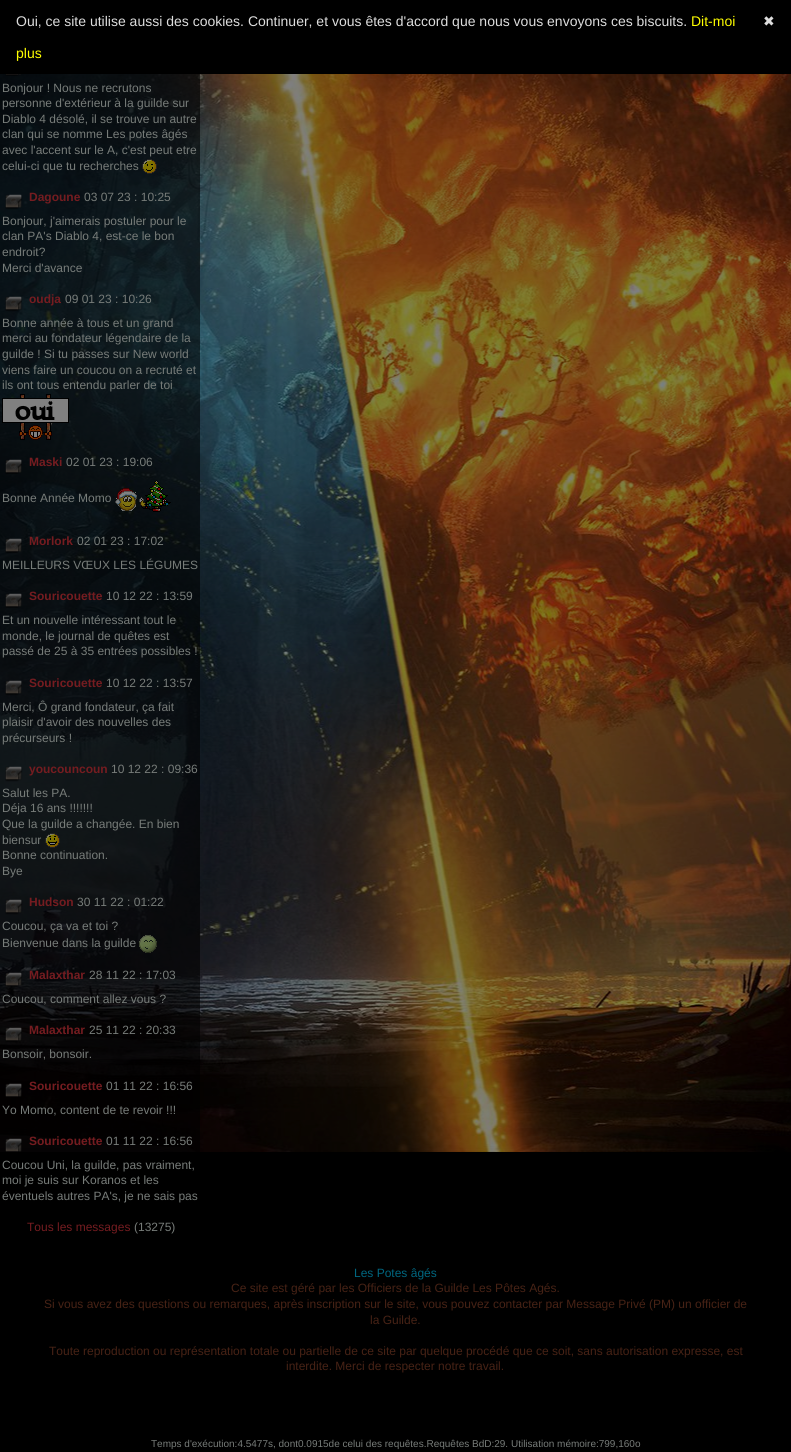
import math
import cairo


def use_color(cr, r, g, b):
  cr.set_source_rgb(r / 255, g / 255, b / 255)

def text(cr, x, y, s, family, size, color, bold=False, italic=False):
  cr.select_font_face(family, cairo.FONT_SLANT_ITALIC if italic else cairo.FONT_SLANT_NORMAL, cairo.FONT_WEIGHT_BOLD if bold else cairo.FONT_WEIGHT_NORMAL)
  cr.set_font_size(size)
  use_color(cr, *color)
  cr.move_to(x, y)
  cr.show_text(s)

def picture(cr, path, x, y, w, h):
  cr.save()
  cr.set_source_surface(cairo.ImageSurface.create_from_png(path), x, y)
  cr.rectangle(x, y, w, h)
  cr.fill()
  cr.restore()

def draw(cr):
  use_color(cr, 0, 0, 0)
  cr.paint()
  picture(cr, "img_01.png", 0, 74, 791, 1078)
  cr.set_source_rgba(0, 0, 0, 0.6)
  cr.rectangle(0, 74, 200, 1078)
  cr.fill()
  picture(cr, "img_02.png", 5, 74, 17, 2)
  picture(cr, "img_03.png", 142, 159, 15, 15)
  picture(cr, "img_04.png", 5, 194, 18, 16)
  picture(cr, "img_05.png", 5, 296, 18, 16)
  picture(cr, "img_06.png", 2, 394, 67, 46)
  picture(cr, "img_07.png", 5, 459, 17, 15)
  picture(cr, "img_08.png", 115, 480, 56, 32)
  picture(cr, "img_09.png", 5, 538, 17, 16)
  picture(cr, "img_10.png", 5, 593, 17, 15)
  picture(cr, "img_11.png", 5, 680, 17, 16)
  picture(cr, "img_12.png", 5, 766, 18, 16)
  picture(cr, "img_13.png", 45, 833, 15, 15)
  picture(cr, "img_14.png", 5, 899, 18, 16)
  picture(cr, "img_15.png", 139, 935, 18, 18)
  picture(cr, "img_16.png", 5, 972, 18, 15)
  picture(cr, "img_17.png", 5, 1027, 17, 15)
  picture(cr, "img_18.png", 5, 1083, 17, 14)
  picture(cr, "img_19.png", 5, 1138, 17, 14)
  text(cr, 16, 26, "Oui, ce site utilise aussi des cookies. Continuer, et vous êtes d'accord que nous vous envoyons ces biscuits.", "Liberation Sans", 14, (221, 221, 221))
  text(cr, 691, 26, "Dit-moi", "Liberation Sans", 14, (255, 255, 0))
  text(cr, 763, 26, "✖", "DejaVu Sans", 14, (221, 221, 221))
  text(cr, 16, 58, "plus", "Liberation Sans", 14, (255, 255, 0))
  text(cr, 2, 92, "Bonjour ! Nous ne recrutons", "Liberation Sans", 12, (119, 124, 121))
  text(cr, 2, 107, "personne d'extérieur à la guilde sur", "Liberation Sans", 12, (119, 124, 121))
  text(cr, 2, 123, "Diablo 4 désolé, il se trouve un autre", "Liberation Sans", 12, (119, 124, 121))
  text(cr, 2, 138, "clan qui se nomme Les potes âgés", "Liberation Sans", 12, (119, 124, 121))
  text(cr, 2, 154, "avec l'accent sur le A, c'est peut etre", "Liberation Sans", 12, (119, 124, 121))
  text(cr, 2, 170, "celui-ci que tu recherches", "Liberation Sans", 12, (119, 124, 121))
  text(cr, 29, 201, "Dagoune", "Liberation Sans", 12, (117, 28, 32), bold=True)
  text(cr, 84, 201, "03 07 23 : 10:25", "Liberation Sans", 12, (119, 124, 121))
  text(cr, 2, 225, "Bonjour, j'aimerais postuler pour le", "Liberation Sans", 12, (119, 124, 121))
  text(cr, 2, 240, "clan PA's Diablo 4, est-ce le bon", "Liberation Sans", 12, (119, 124, 121))
  text(cr, 2, 256, "endroit?", "Liberation Sans", 12, (119, 124, 121))
  text(cr, 2, 272, "Merci d'avance", "Liberation Sans", 12, (119, 124, 121))
  text(cr, 29, 303, "oudja", "Liberation Sans", 12, (117, 28, 32), bold=True)
  text(cr, 65, 303, "09 01 23 : 10:26", "Liberation Sans", 12, (119, 124, 121))
  text(cr, 2, 327, "Bonne année à tous et un grand", "Liberation Sans", 12, (119, 124, 121))
  text(cr, 2, 342, "merci au fondateur légendaire de la", "Liberation Sans", 12, (119, 124, 121))
  text(cr, 2, 358, "guilde ! Si tu passes sur New world", "Liberation Sans", 12, (119, 124, 121))
  text(cr, 2, 374, "viens faire un coucou on a recruté et", "Liberation Sans", 12, (119, 124, 121))
  text(cr, 2, 389, "ils ont tous entendu parler de toi", "Liberation Sans", 12, (119, 124, 121))
  text(cr, 29, 466, "Maski", "Liberation Sans", 12, (117, 28, 32), bold=True)
  text(cr, 66, 466, "02 01 23 : 19:06", "Liberation Sans", 12, (119, 124, 121))
  text(cr, 2, 502, "Bonne Année Momo", "Liberation Sans", 12, (119, 124, 121))
  text(cr, 29, 545, "Morlork", "Liberation Sans", 12, (117, 28, 32), bold=True)
  text(cr, 77, 545, "02 01 23 : 17:02", "Liberation Sans", 12, (119, 124, 121))
  text(cr, 2, 569, "MEILLEURS VŒUX LES LÉGUMES", "Liberation Sans", 12, (119, 124, 121))
  text(cr, 29, 600, "Souricouette", "Liberation Sans", 12, (117, 28, 32), bold=True)
  text(cr, 106, 600, "10 12 22 : 13:59", "Liberation Sans", 12, (119, 124, 121))
  text(cr, 2, 624, "Et un nouvelle intéressant tout le", "Liberation Sans", 12, (119, 124, 121))
  text(cr, 2, 640, "monde, le journal de quêtes est", "Liberation Sans", 12, (119, 124, 121))
  text(cr, 2, 655, "passé de 25 à 35 entrées possibles !", "Liberation Sans", 12, (119, 124, 121))
  text(cr, 29, 687, "Souricouette", "Liberation Sans", 12, (117, 28, 32), bold=True)
  text(cr, 106, 687, "10 12 22 : 13:57", "Liberation Sans", 12, (119, 124, 121))
  text(cr, 2, 711, "Merci, Ô grand fondateur, ça fait", "Liberation Sans", 12, (119, 124, 121))
  text(cr, 2, 726, "plaisir d'avoir des nouvelles des", "Liberation Sans", 12, (119, 124, 121))
  text(cr, 2, 742, "précurseurs !", "Liberation Sans", 12, (119, 124, 121))
  text(cr, 29, 773, "youcouncoun", "Liberation Sans", 12, (117, 28, 32), bold=True)
  text(cr, 111, 773, "10 12 22 : 09:36", "Liberation Sans", 12, (119, 124, 121))
  text(cr, 2, 797, "Salut les PA.", "Liberation Sans", 12, (119, 124, 121))
  text(cr, 2, 812, "Déja 16 ans !!!!!!!", "Liberation Sans", 12, (119, 124, 121))
  text(cr, 2, 828, "Que la guilde a changée. En bien", "Liberation Sans", 12, (119, 124, 121))
  text(cr, 2, 844, "biensur", "Liberation Sans", 12, (119, 124, 121))
  text(cr, 2, 859, "Bonne continuation.", "Liberation Sans", 12, (119, 124, 121))
  text(cr, 2, 875, "Bye", "Liberation Sans", 12, (119, 124, 121))
  text(cr, 29, 906, "Hudson", "Liberation Sans", 12, (117, 28, 32), bold=True)
  text(cr, 77, 906, "30 11 22 : 01:22", "Liberation Sans", 12, (119, 124, 121))
  text(cr, 2, 930, "Coucou, ça va et toi ?", "Liberation Sans", 12, (119, 124, 121))
  text(cr, 2, 947, "Bienvenue dans la guilde", "Liberation Sans", 12, (119, 124, 121))
  text(cr, 29, 979, "Malaxthar", "Liberation Sans", 12, (117, 28, 32), bold=True)
  text(cr, 89, 979, "28 11 22 : 17:03", "Liberation Sans", 12, (119, 124, 121))
  text(cr, 2, 1003, "Coucou, comment allez vous ?", "Liberation Sans", 12, (119, 124, 121))
  text(cr, 29, 1034, "Malaxthar", "Liberation Sans", 12, (117, 28, 32), bold=True)
  text(cr, 89, 1034, "25 11 22 : 20:33", "Liberation Sans", 12, (119, 124, 121))
  text(cr, 2, 1058, "Bonsoir, bonsoir.", "Liberation Sans", 12, (119, 124, 121))
  text(cr, 29, 1090, "Souricouette", "Liberation Sans", 12, (117, 28, 32), bold=True)
  text(cr, 106, 1090, "01 11 22 : 16:56", "Liberation Sans", 12, (119, 124, 121))
  text(cr, 2, 1114, "Yo Momo, content de te revoir !!!", "Liberation Sans", 12, (119, 124, 121))
  text(cr, 29, 1145, "Souricouette", "Liberation Sans", 12, (117, 28, 32), bold=True)
  text(cr, 106, 1145, "01 11 22 : 16:56", "Liberation Sans", 12, (119, 124, 121))
  text(cr, 2, 1169, "Coucou Uni, la guilde, pas vraiment,", "Liberation Sans", 12, (119, 124, 121))
  text(cr, 2, 1184, "moi je suis sur Koranos et les", "Liberation Sans", 12, (119, 124, 121))
  text(cr, 2, 1200, "éventuels autres PA's, je ne sais pas", "Liberation Sans", 12, (119, 124, 121))
  text(cr, 27, 1231, "Tous les messages", "Liberation Sans", 12, (117, 28, 32))
  text(cr, 134, 1231, "(13275)", "Liberation Sans", 12, (119, 124, 121))
  text(cr, 354, 1277, "Les Potes âgés", "Liberation Sans", 12, (0, 102, 128))
  text(cr, 231, 1292, "Ce site est géré par les Officiers de la Guilde Les Pôtes Agés.", "Liberation Sans", 12, (71, 34, 21))
  text(cr, 44, 1308, "Si vous avez des questions ou remarques, après inscription sur le site, vous pouvez contacter par Message Privé (PM) un officier de", "Liberation Sans", 12, (71, 34, 21))
  text(cr, 370, 1324, "la Guilde.", "Liberation Sans", 12, (71, 34, 21))
  text(cr, 49, 1355, "Toute reproduction ou représentation totale ou partielle de ce site par quelque procédé que ce soit, sans autorisation expresse, est", "Liberation Sans", 12, (71, 34, 21))
  text(cr, 286, 1370, "interdite. Merci de respecter notre travail.", "Liberation Sans", 12, (71, 34, 21))
  text(cr, 151, 1447, "Temps d'exécution:4.5477s, dont0.0915de celui des requêtes.Requêtes BdD:29. Utilisation mémoire:799,160o", "Liberation Sans", 10, (119, 124, 121))


surface = cairo.ImageSurface(cairo.FORMAT_RGB24, 791, 1452)
cr = cairo.Context(surface)
options = cairo.FontOptions()
options.set_hint_metrics(cairo.HINT_METRICS_OFF)
options.set_hint_style(cairo.HINT_STYLE_NONE)
cr.set_font_options(options)
cr.set_miter_limit(4)
draw(cr)
surface.write_to_png("out.png")
